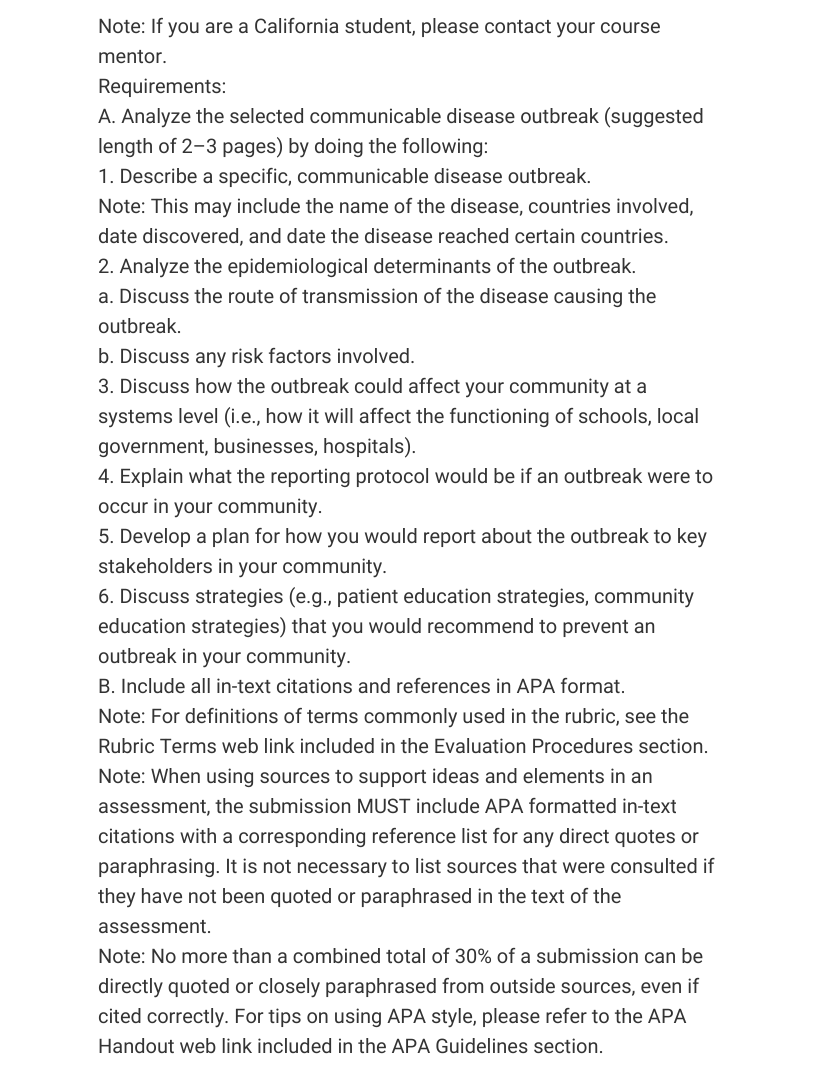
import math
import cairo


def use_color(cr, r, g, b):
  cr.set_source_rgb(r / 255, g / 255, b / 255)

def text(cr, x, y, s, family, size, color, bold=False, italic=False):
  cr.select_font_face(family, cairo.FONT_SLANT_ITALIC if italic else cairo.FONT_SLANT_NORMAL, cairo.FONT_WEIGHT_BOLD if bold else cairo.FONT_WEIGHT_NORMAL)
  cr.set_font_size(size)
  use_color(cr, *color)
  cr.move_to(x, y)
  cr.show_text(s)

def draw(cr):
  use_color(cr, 255, 255, 255)
  cr.paint()
  text(cr, 98, 33, "Note: If you are a California student, please contact your course", "Roboto", 20, (51, 51, 51))
  text(cr, 98, 63, "mentor.", "Roboto", 20, (51, 51, 51))
  text(cr, 98, 93, "Requirements:", "Roboto", 20, (51, 51, 51))
  text(cr, 98, 123, "A. Analyze the selected communicable disease outbreak (suggested", "Roboto", 20, (51, 51, 51))
  text(cr, 98, 153, "length of 2–3 pages) by doing the following:", "Roboto", 20, (51, 51, 51))
  text(cr, 98, 183, "1. Describe a specific, communicable disease outbreak.", "Roboto", 20, (51, 51, 51))
  text(cr, 98, 213, "Note: This may include the name of the disease, countries involved,", "Roboto", 20, (51, 51, 51))
  text(cr, 98, 243, "date discovered, and date the disease reached certain countries.", "Roboto", 20, (51, 51, 51))
  text(cr, 98, 273, "2. Analyze the epidemiological determinants of the outbreak.", "Roboto", 20, (51, 51, 51))
  text(cr, 98, 303, "a. Discuss the route of transmission of the disease causing the", "Roboto", 20, (51, 51, 51))
  text(cr, 98, 333, "outbreak.", "Roboto", 20, (51, 51, 51))
  text(cr, 98, 363, "b. Discuss any risk factors involved.", "Roboto", 20, (51, 51, 51))
  text(cr, 98, 393, "3. Discuss how the outbreak could affect your community at a", "Roboto", 20, (51, 51, 51))
  text(cr, 98, 423, "systems level (i.e., how it will affect the functioning of schools, local", "Roboto", 20, (51, 51, 51))
  text(cr, 98, 453, "government, businesses, hospitals).", "Roboto", 20, (51, 51, 51))
  text(cr, 98, 483, "4. Explain what the reporting protocol would be if an outbreak were to", "Roboto", 20, (51, 51, 51))
  text(cr, 98, 513, "occur in your community.", "Roboto", 20, (51, 51, 51))
  text(cr, 98, 543, "5. Develop a plan for how you would report about the outbreak to key", "Roboto", 20, (51, 51, 51))
  text(cr, 98, 573, "stakeholders in your community.", "Roboto", 20, (51, 51, 51))
  text(cr, 98, 603, "6. Discuss strategies (e.g., patient education strategies, community", "Roboto", 20, (51, 51, 51))
  text(cr, 98, 633, "education strategies) that you would recommend to prevent an", "Roboto", 20, (51, 51, 51))
  text(cr, 98, 663, "outbreak in your community.", "Roboto", 20, (51, 51, 51))
  text(cr, 98, 693, "B. Include all in-text citations and references in APA format.", "Roboto", 20, (51, 51, 51))
  text(cr, 98, 723, "Note: For definitions of terms commonly used in the rubric, see the", "Roboto", 20, (51, 51, 51))
  text(cr, 98, 753, "Rubric Terms web link included in the Evaluation Procedures section.", "Roboto", 20, (51, 51, 51))
  text(cr, 98, 783, "Note: When using sources to support ideas and elements in an", "Roboto", 20, (51, 51, 51))
  text(cr, 98, 813, "assessment, the submission MUST include APA formatted in-text", "Roboto", 20, (51, 51, 51))
  text(cr, 98, 843, "citations with a corresponding reference list for any direct quotes or", "Roboto", 20, (51, 51, 51))
  text(cr, 98, 873, "paraphrasing. It is not necessary to list sources that were consulted if", "Roboto", 20, (51, 51, 51))
  text(cr, 98, 903, "they have not been quoted or paraphrased in the text of the", "Roboto", 20, (51, 51, 51))
  text(cr, 98, 933, "assessment.", "Roboto", 20, (51, 51, 51))
  text(cr, 98, 963, "Note: No more than a combined total of 30% of a submission can be", "Roboto", 20, (51, 51, 51))
  text(cr, 98, 993, "directly quoted or closely paraphrased from outside sources, even if", "Roboto", 20, (51, 51, 51))
  text(cr, 98, 1023, "cited correctly. For tips on using APA style, please refer to the APA", "Roboto", 20, (51, 51, 51))
  text(cr, 98, 1053, "Handout web link included in the APA Guidelines section.", "Roboto", 20, (51, 51, 51))


surface = cairo.ImageSurface(cairo.FORMAT_RGB24, 821, 1078)
cr = cairo.Context(surface)
options = cairo.FontOptions()
options.set_hint_metrics(cairo.HINT_METRICS_OFF)
options.set_hint_style(cairo.HINT_STYLE_NONE)
cr.set_font_options(options)
cr.set_miter_limit(4)
draw(cr)
surface.write_to_png("out.png")
